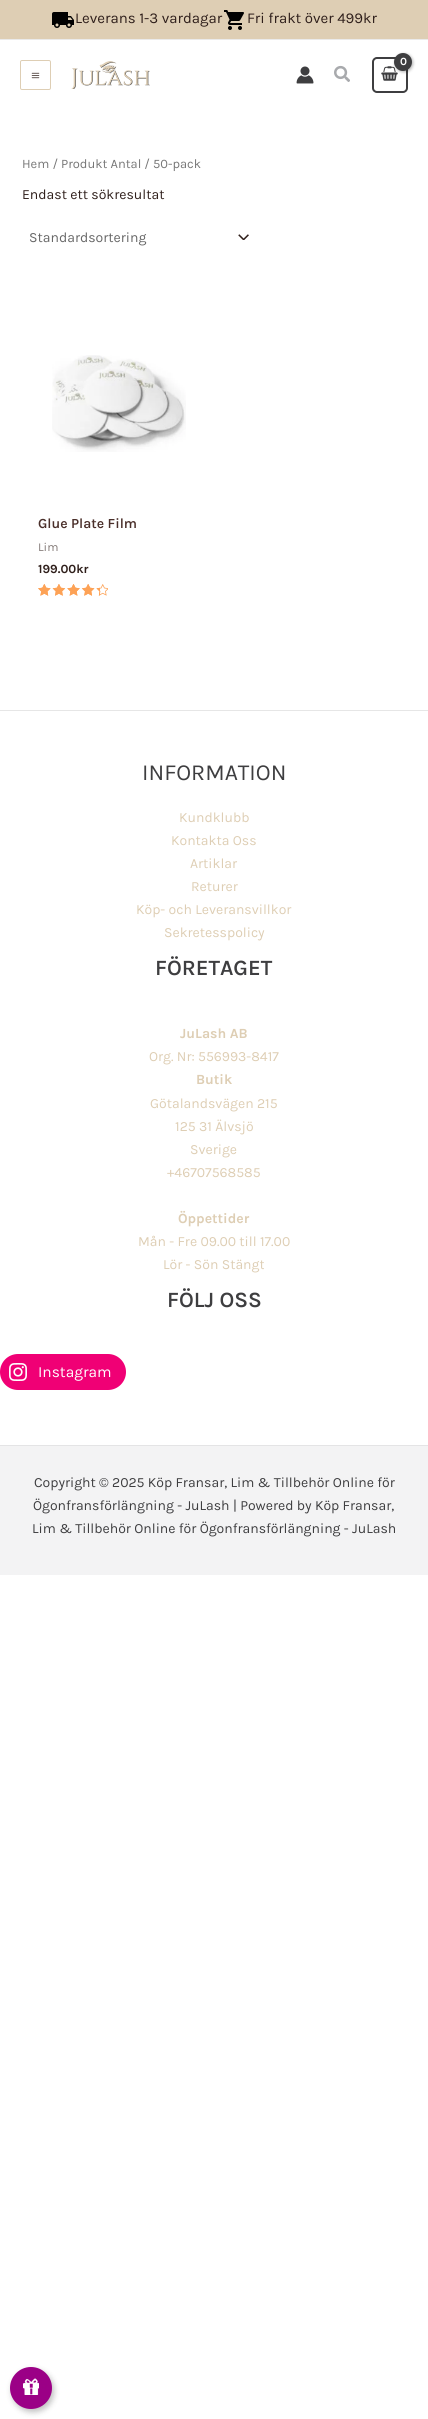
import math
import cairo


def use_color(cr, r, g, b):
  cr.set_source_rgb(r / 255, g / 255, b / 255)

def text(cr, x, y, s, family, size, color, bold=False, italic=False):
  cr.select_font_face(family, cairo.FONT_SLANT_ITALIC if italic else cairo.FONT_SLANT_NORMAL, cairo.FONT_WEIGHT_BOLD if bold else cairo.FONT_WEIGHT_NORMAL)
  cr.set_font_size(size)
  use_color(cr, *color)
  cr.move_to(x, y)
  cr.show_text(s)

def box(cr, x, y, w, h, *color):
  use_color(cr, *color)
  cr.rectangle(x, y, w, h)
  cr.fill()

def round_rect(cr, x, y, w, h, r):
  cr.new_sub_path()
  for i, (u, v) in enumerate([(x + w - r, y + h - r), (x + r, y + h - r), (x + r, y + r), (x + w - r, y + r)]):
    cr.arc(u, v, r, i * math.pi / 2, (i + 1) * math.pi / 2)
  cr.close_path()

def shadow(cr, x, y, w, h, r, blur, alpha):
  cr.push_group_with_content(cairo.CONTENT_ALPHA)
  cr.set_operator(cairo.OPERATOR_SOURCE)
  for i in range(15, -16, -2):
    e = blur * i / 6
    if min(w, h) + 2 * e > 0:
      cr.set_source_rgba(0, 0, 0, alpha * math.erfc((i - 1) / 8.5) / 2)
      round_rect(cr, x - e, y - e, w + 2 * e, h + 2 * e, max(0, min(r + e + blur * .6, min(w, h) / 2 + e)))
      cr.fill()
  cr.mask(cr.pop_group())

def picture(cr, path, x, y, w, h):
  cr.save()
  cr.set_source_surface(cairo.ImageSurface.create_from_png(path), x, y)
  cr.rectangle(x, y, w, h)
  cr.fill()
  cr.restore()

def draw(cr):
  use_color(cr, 255, 255, 255)
  cr.paint()
  box(cr, 0, 0, 428, 39, 222, 206, 180)
  box(cr, 0, 39, 428, 1, 234, 234, 234)
  picture(cr, "img_01.png", 52, 12, 22, 16)
  picture(cr, "img_02.png", 224, 10, 20, 20)
  round_rect(cr, 20.5, 60.5, 30, 29, 1.5)
  use_color(cr, 222, 206, 180)
  cr.set_line_width(1)
  cr.stroke()
  picture(cr, "img_03.png", 31, 72, 9, 7)
  picture(cr, "img_04.png", 71, 61, 79, 28)
  round_rect(cr, 373, 58, 34, 34, 4)
  use_color(cr, 62, 62, 64)
  cr.set_line_width(2)
  cr.stroke()
  picture(cr, "img_05.png", 381, 66, 17, 15)
  use_color(cr, 0, 0, 0)
  shadow(cr, 395, 54, 18, 18, 9, 1.5, 0.3)
  use_color(cr, 62, 62, 64)
  cr.arc(403, 62, 9, 0, 2 * math.pi)
  cr.fill()
  picture(cr, "img_06.png", 296, 66, 18, 18)
  picture(cr, "img_07.png", 334, 65, 16, 17)
  picture(cr, "img_08.png", 238, 234, 11, 6)
  picture(cr, "img_09.png", 52, 355, 134, 97)
  picture(cr, "img_10.png", 38, 584, 70, 12)
  picture(cr, "img_11.png", 38, 584, 62, 12)
  box(cr, 0, 710, 428, 1, 230, 230, 230)
  use_color(cr, 240, 0, 117)
  round_rect(cr, 0, 1354, 126, 36, 18)
  cr.fill()
  picture(cr, "img_12.png", 9, 1363, 18, 18)
  box(cr, 0, 1446, 428, 129, 243, 243, 244)
  box(cr, 0, 1445, 428, 1, 228, 228, 229)
  use_color(cr, 0, 0, 0)
  shadow(cr, 12, 2370, 42, 42, 21, 3, 0.25)
  use_color(cr, 155, 0, 134)
  cr.arc(31, 2388, 21, 0, 2 * math.pi)
  cr.fill()
  picture(cr, "img_13.png", 23, 2378, 16, 17)
  text(cr, 75, 23, "Leverans 1-3 vardagar", "Karla", 15, (47, 31, 27))
  text(cr, 247, 23, "Fri frakt över 499kr", "Karla", 15, (47, 31, 27))
  text(cr, 400, 65, "0", "Karla", 11, (255, 255, 255), bold=True)
  text(cr, 22, 168, "Hem / Produkt Antal / 50-pack", "Karla", 12.9, (119, 119, 119))
  text(cr, 22, 199, "Endast ett sökresultat", "Karla", 14, (47, 31, 27))
  text(cr, 29, 242, "Standardsortering", "Karla", 14, (102, 102, 102))
  text(cr, 38, 528, "Glue Plate Film", "Karla SemiBold", 14, (74, 47, 42))
  text(cr, 38, 551, "Lim", "Karla", 12, (129, 120, 117))
  text(cr, 38, 573, "199.00kr", "Karla", 12.5, (47, 31, 27), bold=True)
  text(cr, 142, 780, "INFORMATION", "Karla", 23, (62, 62, 64))
  text(cr, 179, 822, "Kundklubb", "Karla", 14, (222, 206, 180))
  text(cr, 171, 845, "Kontakta Oss", "Karla", 14, (222, 206, 180))
  text(cr, 190, 868, "Artiklar", "Karla", 14, (222, 206, 180))
  text(cr, 191, 891, "Returer", "Karla", 14, (222, 206, 180))
  text(cr, 136, 914, "Köp- och Leveransvillkor", "Karla", 14, (222, 206, 180))
  text(cr, 164, 937, "Sekretesspolicy", "Karla", 14, (222, 206, 180))
  text(cr, 155, 975, "FÖRETAGET", "Karla SemiBold", 22, (62, 62, 64))
  text(cr, 180, 1038, "JuLash AB", "Karla", 14, (222, 206, 180), bold=True)
  text(cr, 149, 1061, "Org. Nr: 556993-8417", "Karla", 14, (222, 206, 180))
  text(cr, 196, 1084, "Butik", "Karla", 14, (222, 206, 180), bold=True)
  text(cr, 150, 1108, "Götalandsvägen 215", "Karla", 14, (222, 206, 180))
  text(cr, 175, 1131, "125 31 Älvsjö", "Karla", 14, (222, 206, 180))
  text(cr, 190, 1154, "Sverige", "Karla", 14, (222, 206, 180))
  text(cr, 167, 1177, "+46707568585", "Karla", 14, (222, 206, 180))
  text(cr, 178, 1223, "Öppettider", "Karla", 14, (222, 206, 180), bold=True)
  text(cr, 138, 1246, "Mån - Fre 09.00 till 17.00", "Karla", 14, (222, 206, 180))
  text(cr, 163, 1269, "Lör - Sön Stängt", "Karla", 14, (222, 206, 180))
  text(cr, 167, 1307, "FÖLJ OSS", "Karla SemiBold", 22, (62, 62, 64))
  text(cr, 38, 1377, "Instagram", "Karla", 15.5, (255, 255, 255))
  text(cr, 34, 1487, "Copyright © 2025 Köp Fransar, Lim & Tillbehör Online för", "Karla", 14, (62, 62, 64))
  text(cr, 33, 1510, "Ögonfransförlängning - JuLash | Powered by Köp Fransar,", "Karla", 14, (62, 62, 64))
  text(cr, 32, 1533, "Lim & Tillbehör Online för Ögonfransförlängning - JuLash", "Karla", 14, (62, 62, 64))


surface = cairo.ImageSurface(cairo.FORMAT_RGB24, 428, 2419)
cr = cairo.Context(surface)
options = cairo.FontOptions()
options.set_hint_metrics(cairo.HINT_METRICS_OFF)
options.set_hint_style(cairo.HINT_STYLE_NONE)
cr.set_font_options(options)
cr.set_miter_limit(4)
draw(cr)
surface.write_to_png("out.png")
